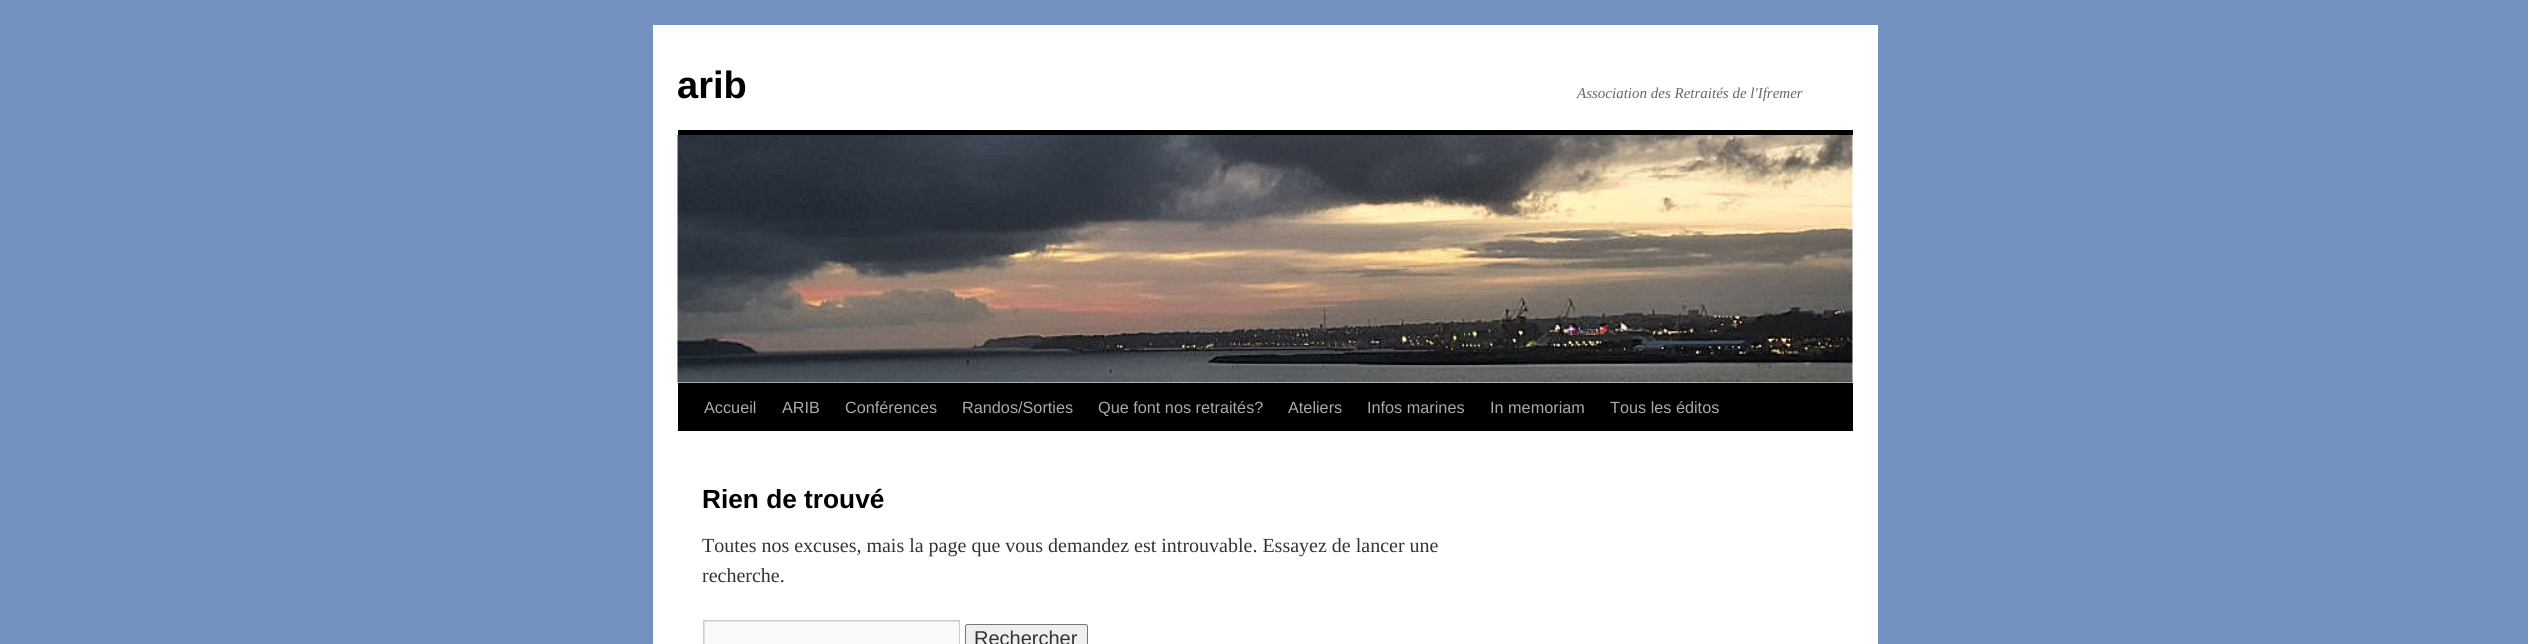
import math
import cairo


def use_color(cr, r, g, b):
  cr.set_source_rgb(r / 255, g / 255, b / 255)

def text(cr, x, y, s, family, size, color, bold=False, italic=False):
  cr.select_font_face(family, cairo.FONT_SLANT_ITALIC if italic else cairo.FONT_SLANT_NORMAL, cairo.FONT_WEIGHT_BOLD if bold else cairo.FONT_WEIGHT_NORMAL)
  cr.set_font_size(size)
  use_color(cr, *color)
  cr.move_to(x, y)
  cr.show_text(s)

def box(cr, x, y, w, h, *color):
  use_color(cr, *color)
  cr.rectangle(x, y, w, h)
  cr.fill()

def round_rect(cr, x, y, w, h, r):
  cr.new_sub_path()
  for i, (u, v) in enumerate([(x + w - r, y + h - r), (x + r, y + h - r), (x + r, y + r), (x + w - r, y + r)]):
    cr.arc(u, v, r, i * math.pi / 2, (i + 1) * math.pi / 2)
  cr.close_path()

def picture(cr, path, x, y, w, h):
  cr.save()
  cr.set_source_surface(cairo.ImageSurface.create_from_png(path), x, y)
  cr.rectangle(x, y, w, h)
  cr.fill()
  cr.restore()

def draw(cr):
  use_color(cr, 116, 146, 191)
  cr.paint()
  box(cr, 653, 25, 1225, 619, 255, 255, 255)
  box(cr, 678, 130, 1175, 5, 0, 0, 0)
  box(cr, 678, 383, 1175, 48, 0, 0, 0)
  picture(cr, "img_01.png", 677, 135, 1176, 248)
  box(cr, 705, 622, 254, 22, 249, 249, 249)
  cr.save()
  cr.rectangle(704, 621, 255, 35)
  cr.clip()
  use_color(cr, 224, 224, 224)
  cr.set_fill_rule(cairo.FILL_RULE_EVEN_ODD)
  cr.new_path()
  cr.move_to(580, 498)
  cr.line_to(1082, 498)
  cr.line_to(1082, 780)
  cr.line_to(580, 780)
  cr.close_path()
  cr.move_to(705, 622)
  cr.line_to(960, 622)
  cr.line_to(960, 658)
  cr.line_to(705, 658)
  cr.close_path()
  cr.fill()
  cr.restore()
  cr.rectangle(703.5, 620.5, 256, 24)
  use_color(cr, 204, 204, 204)
  cr.set_line_width(1)
  cr.stroke()
  use_color(cr, 239, 239, 239)
  round_rect(cr, 965.5, 624.5, 122, 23, 2)
  cr.fill_preserve()
  use_color(cr, 118, 118, 118)
  cr.stroke()
  text(cr, 677, 98, "arib", "Liberation Sans", 38, (0, 0, 0), bold=True)
  text(cr, 1577, 98, "Association des Retraités de l'Ifremer", "Liberation Serif", 15, (102, 102, 102), italic=True)
  text(cr, 704, 413, "Accueil", "Liberation Sans", 16.25, (170, 170, 170))
  text(cr, 782, 413, "ARIB", "Liberation Sans", 16.25, (170, 170, 170))
  text(cr, 845, 413, "Conférences", "Liberation Sans", 16.25, (170, 170, 170))
  text(cr, 962, 413, "Randos/Sorties", "Liberation Sans", 16.25, (170, 170, 170))
  text(cr, 1098, 413, "Que font nos retraités?", "Liberation Sans", 16.25, (170, 170, 170))
  text(cr, 1288, 413, "Ateliers", "Liberation Sans", 16.25, (170, 170, 170))
  text(cr, 1367, 413, "Infos marines", "Liberation Sans", 16.25, (170, 170, 170))
  text(cr, 1490, 413, "In memoriam", "Liberation Sans", 16.25, (170, 170, 170))
  text(cr, 1610, 413, "Tous les éditos", "Liberation Sans", 16.25, (170, 170, 170))
  text(cr, 702, 508, "Rien de trouvé", "Liberation Sans", 26.25, (0, 0, 0), bold=True)
  text(cr, 702, 552, "Toutes nos excuses, mais la page que vous demandez est introuvable. Essayez de lancer une", "Liberation Serif", 20, (51, 51, 51))
  text(cr, 702, 582, "recherche.", "Liberation Serif", 20, (51, 51, 51))
  text(cr, 974, 645, "Rechercher", "Liberation Sans", 20, (51, 51, 51))


surface = cairo.ImageSurface(cairo.FORMAT_RGB24, 2528, 644)
cr = cairo.Context(surface)
options = cairo.FontOptions()
options.set_hint_metrics(cairo.HINT_METRICS_OFF)
options.set_hint_style(cairo.HINT_STYLE_NONE)
cr.set_font_options(options)
cr.set_miter_limit(4)
draw(cr)
surface.write_to_png("out.png")
